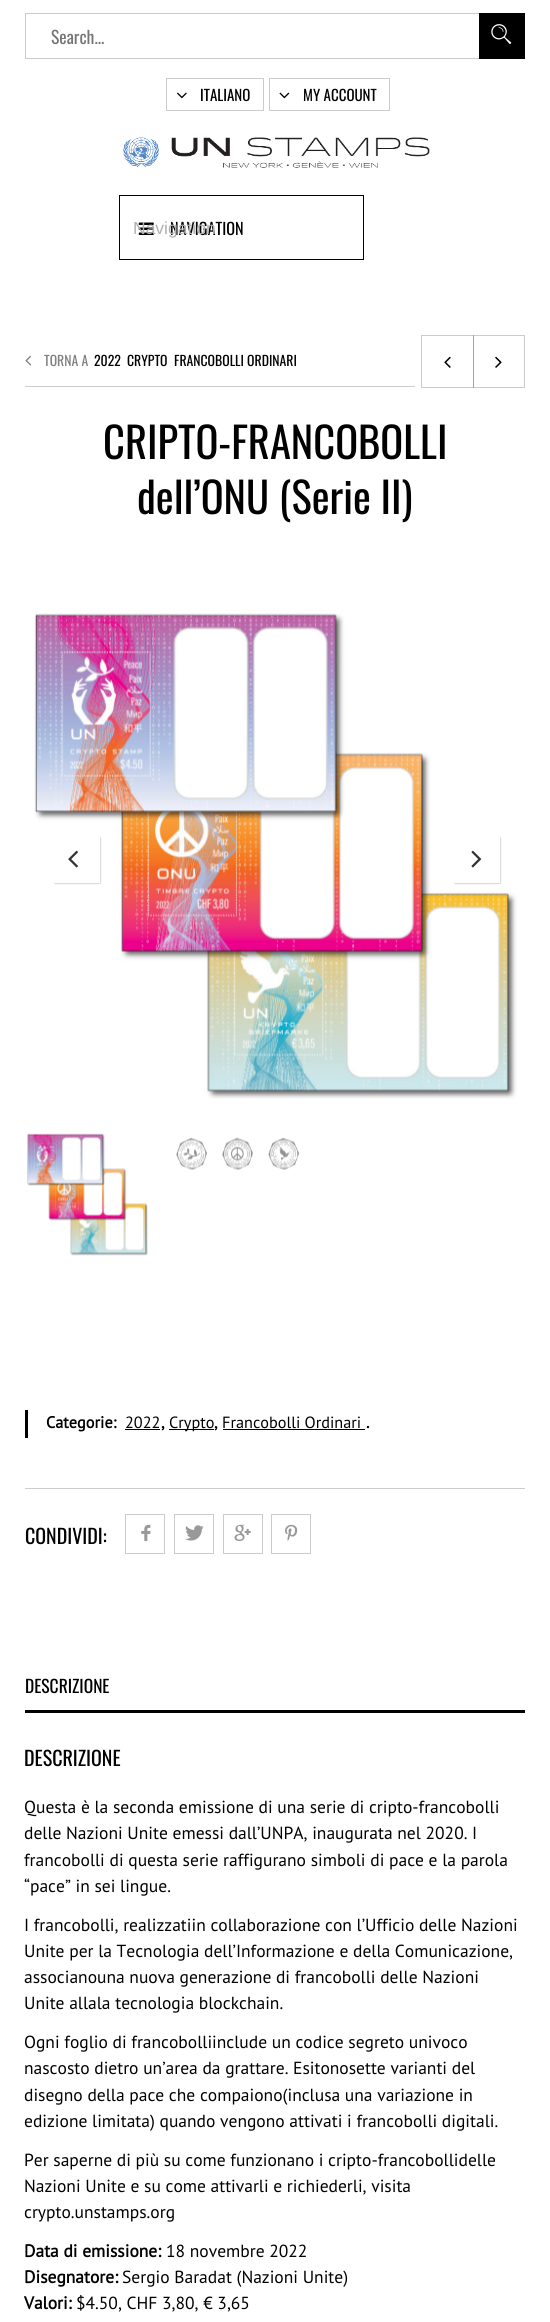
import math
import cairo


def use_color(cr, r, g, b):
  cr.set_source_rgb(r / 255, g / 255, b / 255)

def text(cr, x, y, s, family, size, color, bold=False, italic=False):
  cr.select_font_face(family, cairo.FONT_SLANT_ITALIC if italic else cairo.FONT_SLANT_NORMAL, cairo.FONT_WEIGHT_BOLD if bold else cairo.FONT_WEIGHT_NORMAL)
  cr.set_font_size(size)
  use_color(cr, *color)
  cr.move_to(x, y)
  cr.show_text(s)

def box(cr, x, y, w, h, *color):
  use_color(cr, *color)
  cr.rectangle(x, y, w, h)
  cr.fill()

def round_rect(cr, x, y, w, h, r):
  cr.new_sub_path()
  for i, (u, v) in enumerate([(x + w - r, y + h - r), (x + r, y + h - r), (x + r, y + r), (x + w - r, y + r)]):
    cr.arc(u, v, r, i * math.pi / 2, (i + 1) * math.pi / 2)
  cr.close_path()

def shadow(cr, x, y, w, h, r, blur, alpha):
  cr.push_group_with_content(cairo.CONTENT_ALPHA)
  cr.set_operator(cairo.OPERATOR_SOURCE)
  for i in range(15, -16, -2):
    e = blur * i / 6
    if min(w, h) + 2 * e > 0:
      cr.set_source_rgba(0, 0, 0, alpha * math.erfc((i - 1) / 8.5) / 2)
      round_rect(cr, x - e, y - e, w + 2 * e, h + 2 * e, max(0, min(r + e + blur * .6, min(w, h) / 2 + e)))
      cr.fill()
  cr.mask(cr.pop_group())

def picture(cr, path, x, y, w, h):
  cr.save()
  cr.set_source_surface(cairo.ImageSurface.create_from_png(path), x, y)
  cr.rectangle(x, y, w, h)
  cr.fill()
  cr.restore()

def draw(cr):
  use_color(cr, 255, 255, 255)
  cr.paint()
  cr.rectangle(25.5, 13.5, 499, 45)
  use_color(cr, 204, 204, 204)
  cr.set_line_width(1)
  cr.stroke()
  box(cr, 479, 13, 46, 46, 0, 0, 0)
  picture(cr, "img_01.png", 491, 24, 21, 20)
  cr.rectangle(166.5, 78.5, 97, 32)
  use_color(cr, 204, 204, 204)
  cr.stroke()
  picture(cr, "img_02.png", 177, 92, 10, 7)
  cr.rectangle(269.5, 78.5, 120, 32)
  cr.stroke()
  picture(cr, "img_03.png", 279, 92, 11, 7)
  picture(cr, "img_04.png", 123, 137, 307, 31)
  cr.rectangle(119.5, 195.5, 244, 64)
  use_color(cr, 0, 0, 0)
  cr.stroke()
  picture(cr, "img_05.png", 138, 222, 16, 13)
  box(cr, 25, 386, 390, 1, 204, 204, 204)
  picture(cr, "img_06.png", 25, 355, 6, 11)
  cr.rectangle(473.5, 335.5, 51, 52)
  cr.stroke()
  cr.rectangle(421.5, 335.5, 52, 52)
  cr.set_source_rgba(0, 0, 0, 0.2)
  cr.stroke()
  picture(cr, "img_07.png", 444, 356, 7, 12)
  picture(cr, "img_08.png", 495, 356, 7, 12)
  picture(cr, "img_09.png", 34, 613, 483, 486)
  use_color(cr, 51, 51, 51)
  shadow(cr, 55, 838, 45, 45, 0, 1, 0.5)
  box(cr, 53, 836, 47, 47, 255, 255, 255)
  picture(cr, "img_10.png", 68, 850, 10, 18)
  use_color(cr, 51, 51, 51)
  shadow(cr, 455, 838, 45, 45, 0, 1, 0.5)
  box(cr, 453, 836, 47, 47, 255, 255, 255)
  picture(cr, "img_11.png", 471, 850, 11, 18)
  picture(cr, "img_12.png", 27, 1133, 121, 123)
  picture(cr, "img_13.png", 176, 1137, 124, 33)
  box(cr, 25, 1410, 3, 28, 0, 0, 0)
  box(cr, 125, 1429, 35, 1, 0, 0, 0)
  box(cr, 169, 1429, 45, 1, 0, 0, 0)
  box(cr, 223, 1429, 142, 1, 0, 0, 0)
  box(cr, 25, 1488, 500, 1, 204, 204, 204)
  cr.rectangle(125.5, 1514.5, 39, 39)
  cr.stroke()
  picture(cr, "img_14.png", 141, 1524, 10, 18)
  cr.rectangle(174.5, 1514.5, 39, 39)
  cr.stroke()
  picture(cr, "img_15.png", 185, 1525, 19, 16)
  cr.rectangle(223.5, 1514.5, 39, 39)
  cr.stroke()
  picture(cr, "img_16.png", 234, 1524, 17, 18)
  cr.rectangle(271.5, 1514.5, 39, 39)
  cr.stroke()
  picture(cr, "img_17.png", 285, 1524, 13, 17)
  box(cr, 25, 1710, 500, 3, 0, 0, 0)
  text(cr, 51, 44, "Search...", "Oswald", 17.5, (117, 117, 117))
  text(cr, 200, 101, "ITALIANO", "Oswald", 15, (0, 0, 0))
  text(cr, 303, 101, "MY ACCOUNT", "Oswald", 15, (0, 0, 0))
  text(cr, 170, 235, "NAVIGATION", "Oswald", 16.25, (0, 0, 0))
  text(cr, 133, 234, "Navigation", "Liberation Sans", 17.5, (176, 176, 176))
  text(cr, 44, 366, "TORNA A", "Oswald", 13.75, (128, 128, 128))
  text(cr, 94, 366, "2022", "Oswald", 13.75, (0, 0, 0))
  text(cr, 127, 366, "CRYPTO", "Oswald", 13.75, (0, 0, 0))
  text(cr, 174, 366, "FRANCOBOLLI ORDINARI", "Oswald", 13.75, (0, 0, 0))
  text(cr, 103, 459, "CRIPTO-FRANCOBOLLI", "Oswald", 42.5, (0, 0, 0))
  text(cr, 137, 514, "dell’ONU (Serie II)", "Oswald", 42.5, (0, 0, 0))
  text(cr, 46, 1428, "Categorie:", "PT Sans", 16.25, (0, 0, 0), bold=True)
  text(cr, 125, 1428, "2022", "PT Sans", 16.25, (0, 0, 0))
  text(cr, 161, 1428, ",", "PT Sans", 16.25, (0, 0, 0), bold=True)
  text(cr, 169, 1428, "Crypto", "PT Sans", 16.25, (0, 0, 0))
  text(cr, 214, 1428, ",", "PT Sans", 16.25, (0, 0, 0), bold=True)
  text(cr, 222, 1428, "Francobolli Ordinari", "PT Sans", 16.25, (0, 0, 0))
  text(cr, 366, 1428, ".", "PT Sans", 16.25, (0, 0, 0), bold=True)
  text(cr, 25, 1544, "CONDIVIDI:", "Oswald", 20, (0, 0, 0))
  text(cr, 25, 1693, "DESCRIZIONE", "Oswald", 17.5, (0, 0, 0))
  text(cr, 24, 1766, "DESCRIZIONE", "Oswald", 20, (0, 0, 0))
  text(cr, 24, 1813, "Questa è la seconda emissione di una serie di cripto-francobolli", "PT Sans", 17.5, (0, 0, 0))
  text(cr, 24, 1839, "delle Nazioni Unite emessi dall’UNPA, inaugurata nel 2020. I", "PT Sans", 17.5, (0, 0, 0))
  text(cr, 24, 1866, "francobolli di questa serie raffigurano simboli di pace e la parola", "PT Sans", 17.5, (0, 0, 0))
  text(cr, 24, 1892, "“pace” in sei lingue.", "PT Sans", 17.5, (0, 0, 0))
  text(cr, 24, 1931, "I francobolli, realizzatiin collaborazione con l’Ufficio delle Nazioni", "PT Sans", 17.5, (0, 0, 0))
  text(cr, 24, 1957, "Unite per la Tecnologia dell’Informazione e della Comunicazione,", "PT Sans", 17.5, (0, 0, 0))
  text(cr, 24, 1983, "associanouna nuova generazione di francobolli delle Nazioni", "PT Sans", 17.5, (0, 0, 0))
  text(cr, 24, 2009, "Unite allala tecnologia blockchain.", "PT Sans", 17.5, (0, 0, 0))
  text(cr, 24, 2048, "Ogni foglio di francobolliinclude un codice segreto univoco", "PT Sans", 17.5, (0, 0, 0))
  text(cr, 24, 2074, "nascosto dietro un’area da grattare. Esitonosette varianti del", "PT Sans", 17.5, (0, 0, 0))
  text(cr, 24, 2101, "disegno della pace che compaiono(inclusa una variazione in", "PT Sans", 17.5, (0, 0, 0))
  text(cr, 24, 2127, "edizione limitata) quando vengono attivati i francobolli digitali.", "PT Sans", 17.5, (0, 0, 0))
  text(cr, 24, 2166, "Per saperne di più su come funzionano i cripto-francobollidelle", "PT Sans", 17.5, (0, 0, 0))
  text(cr, 24, 2192, "Nazioni Unite e su come attivarli e richiederli, visita", "PT Sans", 17.5, (0, 0, 0))
  text(cr, 24, 2218, "crypto.unstamps.org", "PT Sans", 17.5, (0, 0, 0))
  text(cr, 24, 2257, "Data di emissione:", "PT Sans", 17.5, (0, 0, 0), bold=True)
  text(cr, 166, 2257, "18 novembre 2022", "PT Sans", 17.5, (0, 0, 0))
  text(cr, 24, 2283, "Disegnatore:", "PT Sans", 17.5, (0, 0, 0), bold=True)
  text(cr, 122, 2283, "Sergio Baradat (Nazioni Unite)", "PT Sans", 17.5, (0, 0, 0))
  text(cr, 24, 2309, "Valori:", "PT Sans", 17.5, (0, 0, 0), bold=True)
  text(cr, 76, 2309, "$4.50, CHF 3,80, € 3,65", "PT Sans", 17.5, (0, 0, 0))


surface = cairo.ImageSurface(cairo.FORMAT_RGB24, 550, 2322)
cr = cairo.Context(surface)
options = cairo.FontOptions()
options.set_hint_metrics(cairo.HINT_METRICS_OFF)
options.set_hint_style(cairo.HINT_STYLE_NONE)
cr.set_font_options(options)
cr.set_miter_limit(4)
draw(cr)
surface.write_to_png("out.png")
